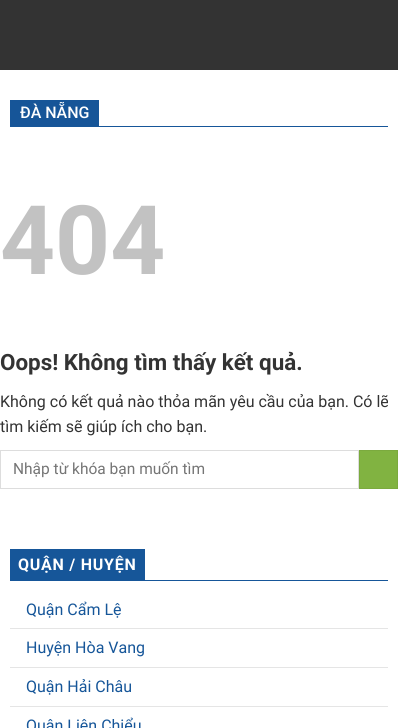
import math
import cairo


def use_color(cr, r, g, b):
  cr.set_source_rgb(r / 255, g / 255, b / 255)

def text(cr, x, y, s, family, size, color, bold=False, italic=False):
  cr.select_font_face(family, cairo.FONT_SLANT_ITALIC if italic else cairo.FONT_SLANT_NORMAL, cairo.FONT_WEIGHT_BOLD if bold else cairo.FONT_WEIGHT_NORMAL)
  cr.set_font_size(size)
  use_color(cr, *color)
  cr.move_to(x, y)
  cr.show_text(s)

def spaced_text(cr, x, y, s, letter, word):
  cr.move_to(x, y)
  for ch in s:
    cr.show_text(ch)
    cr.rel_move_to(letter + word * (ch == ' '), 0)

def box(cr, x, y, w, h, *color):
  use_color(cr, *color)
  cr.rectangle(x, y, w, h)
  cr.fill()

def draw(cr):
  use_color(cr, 255, 255, 255)
  cr.paint()
  box(cr, 0, 0, 398, 70, 51, 51, 51)
  box(cr, 10, 126, 378, 1, 22, 86, 153)
  box(cr, 10, 100, 89, 26, 22, 85, 152)
  cr.rectangle(0.5, 450.5, 358, 38)
  use_color(cr, 221, 221, 221)
  cr.set_line_width(1)
  cr.stroke()
  use_color(cr, 129, 179, 65)
  cr.rectangle(359.5, 450.5, 38, 38)
  cr.fill_preserve()
  use_color(cr, 123, 170, 62)
  cr.stroke()
  box(cr, 10, 580, 378, 1, 22, 86, 153)
  box(cr, 10, 549, 135, 31, 22, 86, 153)
  box(cr, 10, 628, 378, 1, 229, 229, 229)
  box(cr, 10, 667, 378, 1, 229, 229, 229)
  box(cr, 10, 706, 378, 1, 229, 229, 229)
  text(cr, 20, 118, "ĐÀ NẴNG", "Roboto Medium", 16, (255, 255, 255))
  text(cr, 0, 274, "404", "Roboto", 96, (194, 194, 194), bold=True)
  text(cr, 0, 370, "Oops! Không tìm thấy kết quả.", "Roboto", 22.4, (51, 51, 51), bold=True)
  text(cr, 0, 407, "Không có kết quả nào thỏa mãn yêu cầu của bạn. Có lẽ", "Roboto", 16, (51, 51, 51))
  text(cr, 0, 432, "tìm kiếm sẽ giúp ích cho bạn.", "Roboto", 16, (51, 51, 51))
  text(cr, 13, 474, "Nhập từ khóa bạn muốn tìm", "Roboto", 15.5, (117, 117, 117))
  cr.select_font_face("Roboto", cairo.FONT_SLANT_NORMAL, cairo.FONT_WEIGHT_BOLD)
  cr.set_font_size(16)
  use_color(cr, 255, 255, 255)
  spaced_text(cr, 18, 570, "QUẬN / HUYỆN", 0.75, 0)
  text(cr, 26, 615, "Quận Cẩm Lệ", "Roboto", 16, (22, 86, 153))
  text(cr, 26, 653, "Huyện Hòa Vang", "Roboto", 16, (22, 86, 153))
  text(cr, 26, 692, "Quận Hải Châu", "Roboto", 16, (22, 86, 153))
  text(cr, 26, 731, "Quận Liên Chiểu", "Roboto", 16, (22, 86, 153))


surface = cairo.ImageSurface(cairo.FORMAT_RGB24, 398, 728)
cr = cairo.Context(surface)
options = cairo.FontOptions()
options.set_hint_metrics(cairo.HINT_METRICS_OFF)
options.set_hint_style(cairo.HINT_STYLE_NONE)
cr.set_font_options(options)
cr.set_miter_limit(4)
draw(cr)
surface.write_to_png("out.png")
